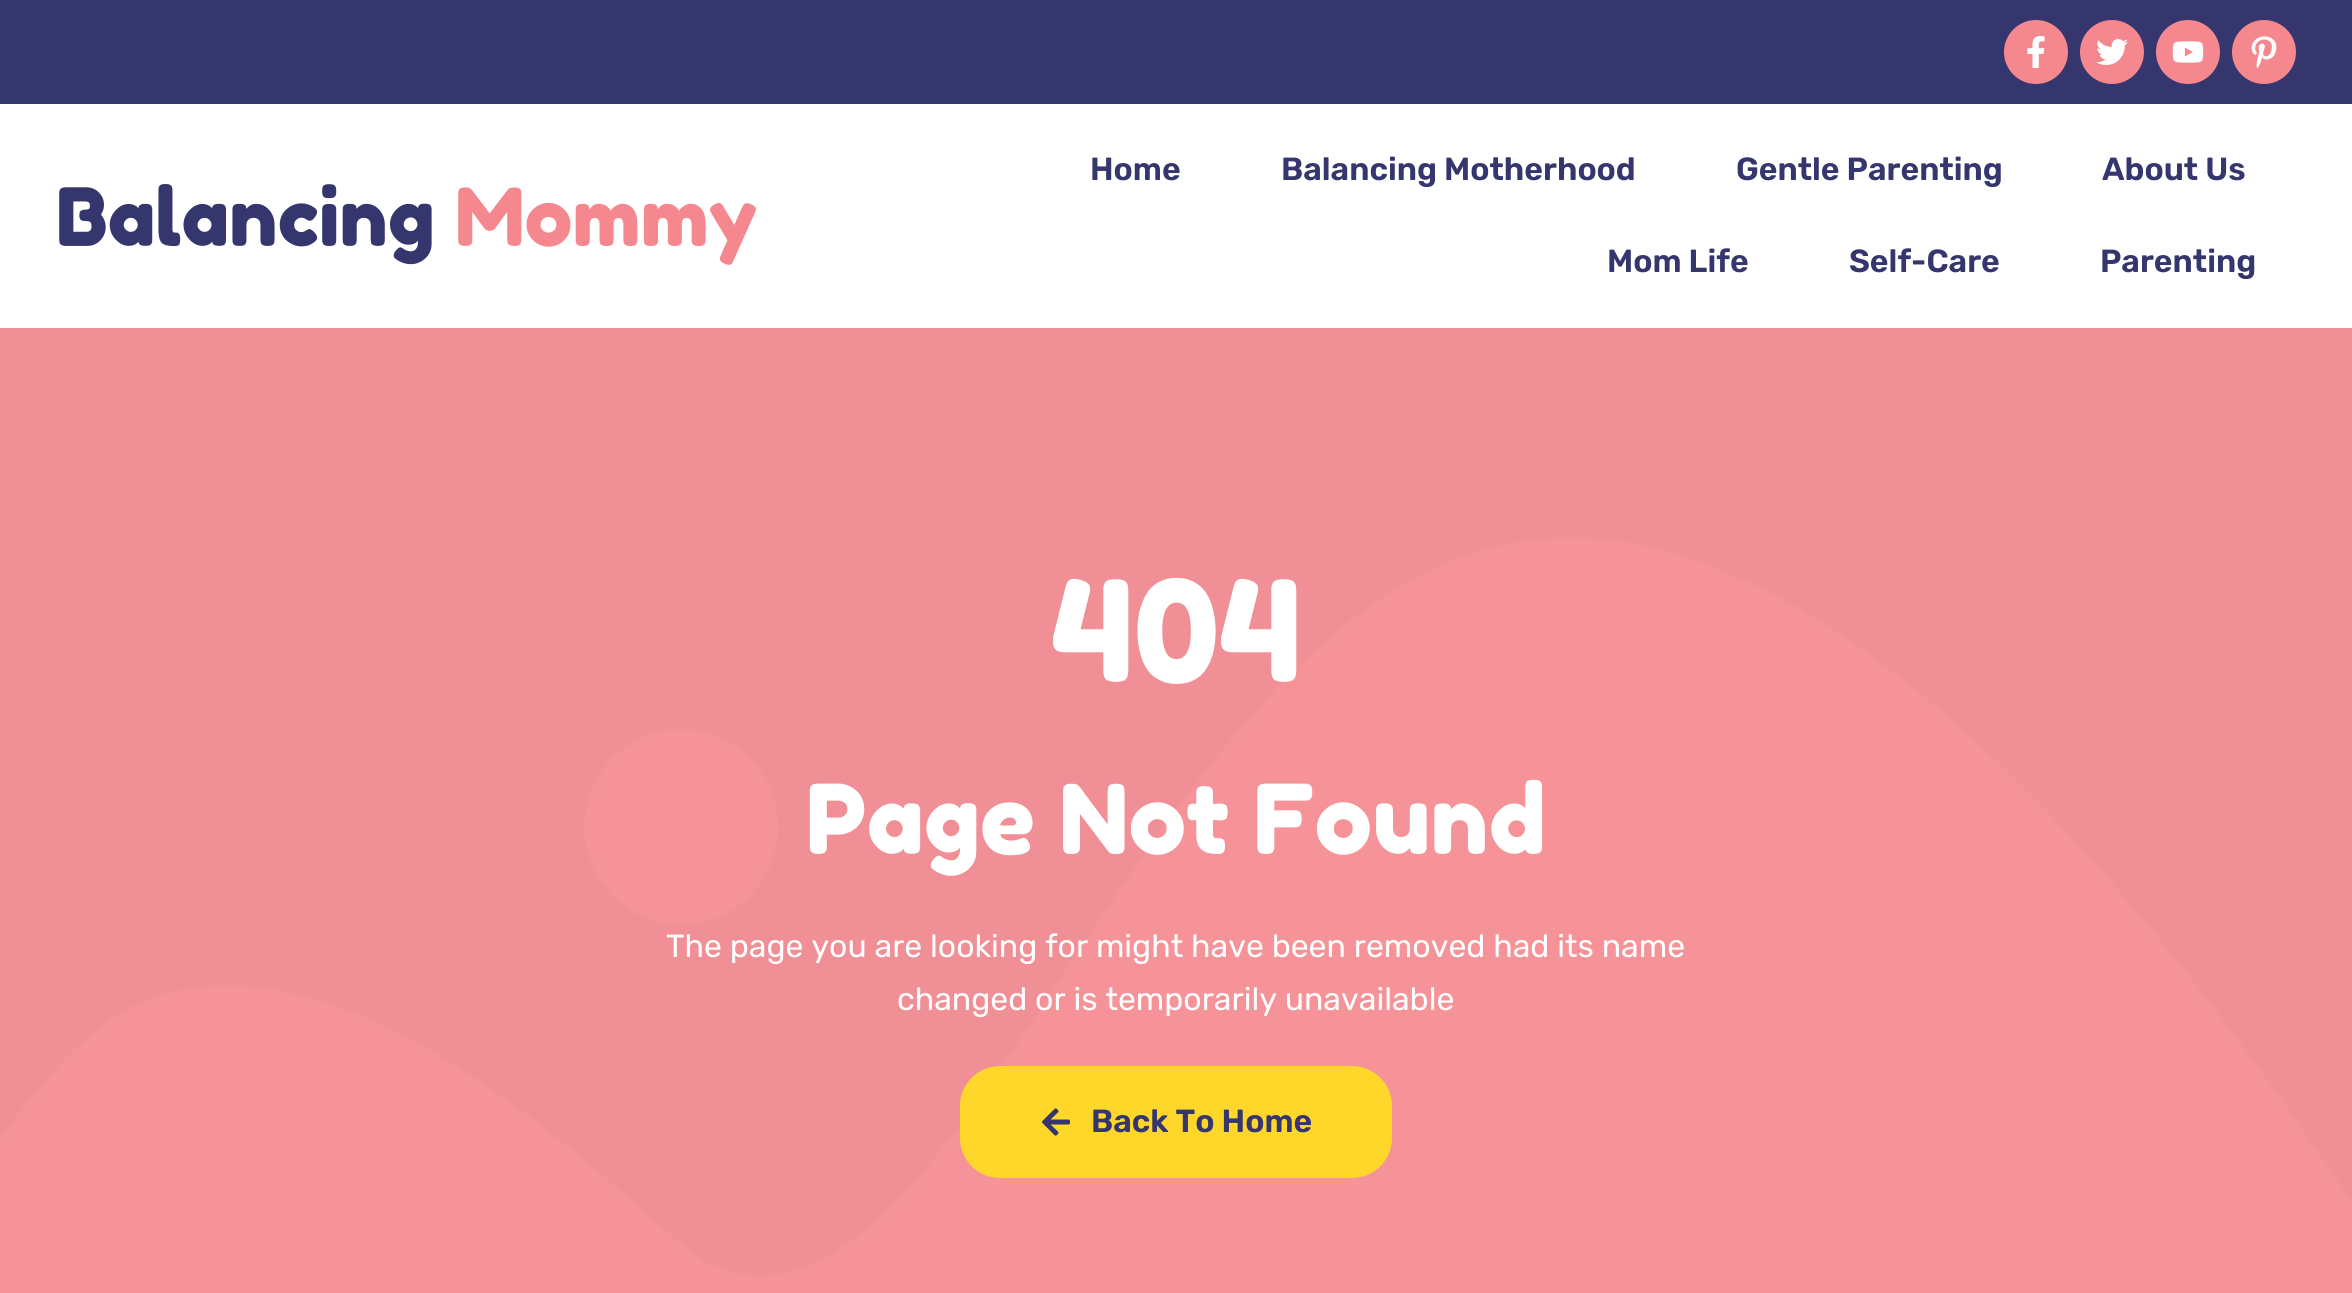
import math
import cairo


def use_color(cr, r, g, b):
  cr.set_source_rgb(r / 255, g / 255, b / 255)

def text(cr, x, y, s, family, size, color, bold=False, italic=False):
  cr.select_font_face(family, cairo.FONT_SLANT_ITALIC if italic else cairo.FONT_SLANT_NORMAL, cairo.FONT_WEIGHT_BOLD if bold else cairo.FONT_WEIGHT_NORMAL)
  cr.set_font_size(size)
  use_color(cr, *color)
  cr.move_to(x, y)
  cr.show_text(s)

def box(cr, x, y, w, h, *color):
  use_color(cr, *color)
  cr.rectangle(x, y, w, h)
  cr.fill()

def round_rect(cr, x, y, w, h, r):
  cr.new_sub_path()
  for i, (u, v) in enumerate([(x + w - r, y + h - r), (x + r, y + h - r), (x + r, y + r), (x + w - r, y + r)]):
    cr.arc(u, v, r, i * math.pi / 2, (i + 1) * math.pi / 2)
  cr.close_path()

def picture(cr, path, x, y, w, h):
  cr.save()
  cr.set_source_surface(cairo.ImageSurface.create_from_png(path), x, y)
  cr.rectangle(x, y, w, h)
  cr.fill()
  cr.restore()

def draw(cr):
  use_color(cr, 255, 255, 255)
  cr.paint()
  box(cr, 0, 0, 2352, 104, 52, 54, 109)
  use_color(cr, 245, 136, 142)
  cr.arc(2036, 52, 32, 0, 2 * math.pi)
  cr.fill()
  picture(cr, "img_01.png", 2027, 36, 18, 32)
  cr.arc(2112, 52, 32, 0, 2 * math.pi)
  cr.fill()
  picture(cr, "img_02.png", 2096, 39, 32, 26)
  cr.arc(2188, 52, 32, 0, 2 * math.pi)
  cr.fill()
  picture(cr, "img_03.png", 2172, 41, 32, 22)
  cr.arc(2264, 52, 32, 0, 2 * math.pi)
  cr.fill()
  picture(cr, "img_04.png", 2251, 36, 26, 33)
  picture(cr, "img_05.png", 0, 328, 2352, 965)
  use_color(cr, 255, 214, 42)
  round_rect(cr, 960, 1066, 432, 112, 40)
  cr.fill()
  picture(cr, "img_06.png", 1042, 1108, 28, 28)
  text(cr, 56, 246, "Balancing", "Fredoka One", 80, (52, 54, 109))
  text(cr, 455, 246, "Mommy", "Fredoka One", 80, (245, 136, 142))
  text(cr, 1090, 180, "Home", "Rubik SemiBold", 32, (52, 54, 109))
  text(cr, 1281, 180, "Balancing Motherhood", "Rubik SemiBold", 32, (52, 54, 109))
  text(cr, 1736, 180, "Gentle Parenting", "Rubik SemiBold", 32, (52, 54, 109))
  text(cr, 2102, 180, "About Us", "Rubik SemiBold", 32, (52, 54, 109))
  text(cr, 1607, 272, "Mom Life", "Rubik SemiBold", 32, (52, 54, 109))
  text(cr, 1849, 272, "Self-Care", "Rubik SemiBold", 32, (52, 54, 109))
  text(cr, 2100, 272, "Parenting", "Rubik SemiBold", 32, (52, 54, 109))
  text(cr, 1051, 682, "404", "Fredoka One", 140, (255, 255, 255))
  text(cr, 806, 854, "Page Not Found", "Fredoka One", 96, (255, 255, 255))
  text(cr, 666, 957, "The page you are looking for might have been removed had its name", "Rubik", 32, (255, 255, 255))
  text(cr, 897, 1010, "changed or is temporarily unavailable", "Rubik", 32, (255, 255, 255))
  text(cr, 1091, 1132, "Back To Home", "Rubik SemiBold", 32, (52, 54, 109))


surface = cairo.ImageSurface(cairo.FORMAT_RGB24, 2352, 1293)
cr = cairo.Context(surface)
options = cairo.FontOptions()
options.set_hint_metrics(cairo.HINT_METRICS_OFF)
options.set_hint_style(cairo.HINT_STYLE_NONE)
cr.set_font_options(options)
cr.set_miter_limit(4)
draw(cr)
surface.write_to_png("out.png")
